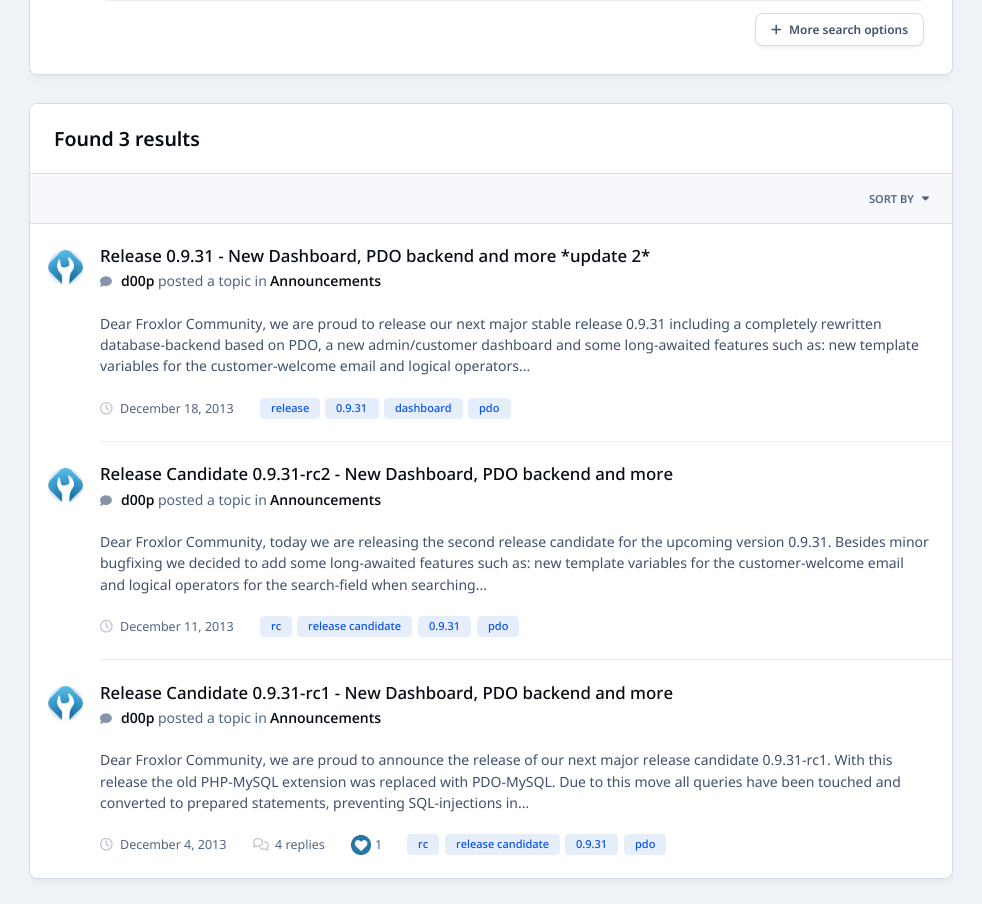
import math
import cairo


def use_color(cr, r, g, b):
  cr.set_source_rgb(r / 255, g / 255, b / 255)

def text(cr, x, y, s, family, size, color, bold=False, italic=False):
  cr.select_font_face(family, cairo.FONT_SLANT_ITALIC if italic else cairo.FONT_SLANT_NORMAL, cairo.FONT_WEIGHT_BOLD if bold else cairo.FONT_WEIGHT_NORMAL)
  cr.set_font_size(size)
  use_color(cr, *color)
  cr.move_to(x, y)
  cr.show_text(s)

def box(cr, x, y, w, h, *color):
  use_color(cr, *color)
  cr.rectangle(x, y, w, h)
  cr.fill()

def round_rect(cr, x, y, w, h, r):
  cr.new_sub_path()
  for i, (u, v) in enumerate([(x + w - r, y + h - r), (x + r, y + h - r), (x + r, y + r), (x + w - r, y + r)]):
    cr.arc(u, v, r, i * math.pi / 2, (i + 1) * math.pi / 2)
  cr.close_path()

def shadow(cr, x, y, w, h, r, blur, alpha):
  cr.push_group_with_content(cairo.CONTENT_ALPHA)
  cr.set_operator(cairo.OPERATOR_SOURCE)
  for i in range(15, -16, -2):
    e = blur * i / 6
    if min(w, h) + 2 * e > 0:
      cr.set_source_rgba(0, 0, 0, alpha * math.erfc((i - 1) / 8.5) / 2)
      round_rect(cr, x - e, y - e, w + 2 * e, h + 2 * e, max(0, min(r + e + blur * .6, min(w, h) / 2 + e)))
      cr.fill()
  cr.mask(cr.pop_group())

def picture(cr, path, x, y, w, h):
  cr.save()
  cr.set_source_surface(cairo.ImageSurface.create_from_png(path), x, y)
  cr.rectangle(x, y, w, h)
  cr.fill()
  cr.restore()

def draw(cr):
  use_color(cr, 239, 242, 247)
  cr.paint()
  use_color(cr, 1, 3, 10)
  shadow(cr, 32, -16, 918, 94, 5, 3.5, 0.05)
  use_color(cr, 255, 255, 255)
  round_rect(cr, 29.5, -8.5, 923, 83, 7.5)
  cr.fill_preserve()
  use_color(cr, 213, 219, 230)
  cr.set_line_width(1)
  cr.stroke()
  use_color(cr, 0, 0, 0)
  shadow(cr, 103, -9, 821, 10, 7, 0.5, 0.08)
  cr.save()
  cr.set_fill_rule(cairo.FILL_RULE_EVEN_ODD)
  cr.new_path()
  cr.move_to(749, 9)
  cr.line_to(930, 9)
  cr.line_to(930, 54)
  cr.line_to(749, 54)
  cr.close_path()
  cr.move_to(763, 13)
  cr.line_to(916, 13)
  cr.curve_to(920.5, 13, 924, 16.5, 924, 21)
  cr.line_to(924, 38)
  cr.curve_to(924, 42.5, 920.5, 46, 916, 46)
  cr.line_to(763, 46)
  cr.curve_to(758.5, 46, 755, 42.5, 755, 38)
  cr.line_to(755, 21)
  cr.curve_to(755, 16.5, 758.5, 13, 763, 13)
  cr.close_path()
  cr.clip()
  shadow(cr, 755, 15, 169, 33, 8, 1.5, 0.06)
  cr.restore()
  round_rect(cr, 755.5, 13.5, 168, 32, 7.5)
  cr.set_source_rgba(0.251, 0.314, 0.42, 0.2)
  cr.stroke()
  picture(cr, "img_01.png", 771, 24, 10, 11)
  use_color(cr, 1, 3, 10)
  shadow(cr, 32, 112, 918, 770, 5, 3.5, 0.05)
  use_color(cr, 255, 255, 255)
  round_rect(cr, 29.5, 103.5, 923, 775, 7.5)
  cr.fill_preserve()
  use_color(cr, 213, 219, 230)
  cr.stroke()
  use_color(cr, 255, 255, 255)
  cr.new_path()
  cr.move_to(37, 104)
  cr.line_to(945, 104)
  cr.curve_to(949, 104, 952, 107, 952, 111)
  cr.line_to(952, 174)
  cr.line_to(30, 174)
  cr.line_to(30, 111)
  cr.curve_to(30, 107, 33, 104, 37, 104)
  cr.close_path()
  cr.fill()
  box(cr, 30, 173, 922, 1, 215, 223, 234)
  box(cr, 30, 174, 922, 49, 247, 248, 251)
  box(cr, 30, 223, 922, 1, 215, 223, 234)
  picture(cr, "img_02.png", 922, 196, 7, 5)
  use_color(cr, 229, 234, 242)
  cr.arc(65.5, 267.5, 17.5, 0, 2 * math.pi)
  cr.fill()
  picture(cr, "img_03.png", 48, 250, 35, 35)
  picture(cr, "img_04.png", 100, 276, 12, 11)
  picture(cr, "img_05.png", 100, 402, 13, 13)
  use_color(cr, 230, 238, 252)
  round_rect(cr, 260, 398, 60, 21, 4)
  cr.fill()
  round_rect(cr, 325, 398, 54, 21, 4)
  cr.fill()
  round_rect(cr, 384, 398, 79, 21, 4)
  cr.fill()
  round_rect(cr, 468, 398, 43, 21, 4)
  cr.fill()
  use_color(cr, 229, 234, 242)
  cr.arc(65.5, 485.5, 17.5, 0, 2 * math.pi)
  cr.fill()
  picture(cr, "img_06.png", 48, 468, 35, 35)
  box(cr, 100, 441, 852, 1, 236, 238, 240)
  picture(cr, "img_04.png", 100, 495, 12, 11)
  picture(cr, "img_05.png", 100, 620, 13, 13)
  use_color(cr, 230, 238, 252)
  round_rect(cr, 260, 616, 32, 21, 4)
  cr.fill()
  round_rect(cr, 297, 616, 115, 21, 4)
  cr.fill()
  round_rect(cr, 418, 616, 53, 21, 4)
  cr.fill()
  round_rect(cr, 477, 616, 42, 21, 4)
  cr.fill()
  use_color(cr, 229, 234, 242)
  cr.arc(65.5, 703.5, 17.5, 0, 2 * math.pi)
  cr.fill()
  picture(cr, "img_03.png", 48, 686, 35, 35)
  box(cr, 100, 659, 852, 1, 236, 238, 240)
  picture(cr, "img_04.png", 100, 713, 12, 11)
  picture(cr, "img_05.png", 100, 838, 13, 13)
  picture(cr, "img_07.png", 253, 838, 16, 13)
  picture(cr, "img_08.png", 351, 835, 20, 20)
  use_color(cr, 230, 238, 252)
  round_rect(cr, 407, 834, 32, 21, 4)
  cr.fill()
  round_rect(cr, 445, 834, 115, 21, 4)
  cr.fill()
  round_rect(cr, 565, 834, 53, 21, 4)
  cr.fill()
  round_rect(cr, 624, 834, 42, 21, 4)
  cr.fill()
  text(cr, 789, 34, "More search options", "Noto Sans SemiBold", 11.9, (64, 80, 107))
  text(cr, 54, 146, "Found 3 results", "Noto Sans SemiBold", 19.5, (6, 11, 20))
  text(cr, 869, 203, "SORT BY", "Noto Sans SemiBold", 11, (81, 100, 131))
  text(cr, 100, 262, "Release 0.9.31 - New Dashboard, PDO backend and more *update 2*", "Noto Sans Medium", 16.8, (6, 11, 20))
  text(cr, 121, 286, "d00p", "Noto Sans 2 Medium", 14, (6, 11, 20))
  text(cr, 158, 286, "posted a topic in", "Noto Sans", 14, (81, 100, 131))
  text(cr, 270, 286, "Announcements", "Noto Sans 2 Medium", 14, (6, 11, 20))
  text(cr, 100, 329, "Dear Froxlor Community, we are proud to release our next major stable release 0.9.31 including a completely rewritten", "Noto Sans", 14, (64, 80, 107))
  text(cr, 100, 350, "database-backend based on PDO, a new admin/customer dashboard and some long-awaited features such as: new template", "Noto Sans", 14, (64, 80, 107))
  text(cr, 100, 371, "variables for the customer-welcome email and logical operators...", "Noto Sans", 14, (64, 80, 107))
  text(cr, 120, 413, "December 18, 2013", "Noto Sans", 12.5, (81, 100, 131))
  text(cr, 271, 412, "release", "Noto Sans Medium", 11, (7, 82, 226))
  text(cr, 336, 412, "0.9.31", "Noto Sans Medium", 11, (7, 82, 226))
  text(cr, 395, 412, "dashboard", "Noto Sans Medium", 11, (7, 82, 226))
  text(cr, 479, 412, "pdo", "Noto Sans Medium", 11, (7, 82, 226))
  text(cr, 100, 480, "Release Candidate 0.9.31-rc2 - New Dashboard, PDO backend and more", "Noto Sans Medium", 16.8, (6, 11, 20))
  text(cr, 121, 505, "d00p", "Noto Sans 2 Medium", 14, (6, 11, 20))
  text(cr, 158, 505, "posted a topic in", "Noto Sans", 14, (81, 100, 131))
  text(cr, 270, 505, "Announcements", "Noto Sans 2 Medium", 14, (6, 11, 20))
  text(cr, 100, 547, "Dear Froxlor Community, today we are releasing the second release candidate for the upcoming version 0.9.31. Besides minor", "Noto Sans", 14, (64, 80, 107))
  text(cr, 100, 568, "bugfixing we decided to add some long-awaited features such as: new template variables for the customer-welcome email", "Noto Sans", 14, (64, 80, 107))
  text(cr, 100, 590, "and logical operators for the search-field when searching...", "Noto Sans", 14, (64, 80, 107))
  text(cr, 120, 631, "December 11, 2013", "Noto Sans", 12.5, (81, 100, 131))
  text(cr, 271, 630, "rc", "Noto Sans Medium", 11, (7, 82, 226))
  text(cr, 308, 630, "release candidate", "Noto Sans Medium", 11, (7, 82, 226))
  text(cr, 429, 630, "0.9.31", "Noto Sans Medium", 11, (7, 82, 226))
  text(cr, 488, 630, "pdo", "Noto Sans Medium", 11, (7, 82, 226))
  text(cr, 100, 699, "Release Candidate 0.9.31-rc1 - New Dashboard, PDO backend and more", "Noto Sans Medium", 16.8, (6, 11, 20))
  text(cr, 121, 723, "d00p", "Noto Sans 2 Medium", 14, (6, 11, 20))
  text(cr, 158, 723, "posted a topic in", "Noto Sans", 14, (81, 100, 131))
  text(cr, 270, 723, "Announcements", "Noto Sans 2 Medium", 14, (6, 11, 20))
  text(cr, 100, 765, "Dear Froxlor Community, we are proud to announce the release of our next major release candidate 0.9.31-rc1. With this", "Noto Sans", 14, (64, 80, 107))
  text(cr, 100, 787, "release the old PHP-MySQL extension was replaced with PDO-MySQL. Due to this move all queries have been touched and", "Noto Sans", 14, (64, 80, 107))
  text(cr, 100, 808, "converted to prepared statements, preventing SQL-injections in...", "Noto Sans", 14, (64, 80, 107))
  text(cr, 120, 849, "December 4, 2013", "Noto Sans", 12.5, (81, 100, 131))
  text(cr, 275, 849, "4 replies", "Noto Sans", 12.5, (81, 100, 131))
  text(cr, 375, 849, "1", "Noto Sans", 12.5, (81, 100, 131))
  text(cr, 418, 848, "rc", "Noto Sans Medium", 11, (7, 82, 226))
  text(cr, 456, 848, "release candidate", "Noto Sans Medium", 11, (7, 82, 226))
  text(cr, 576, 848, "0.9.31", "Noto Sans Medium", 11, (7, 82, 226))
  text(cr, 635, 848, "pdo", "Noto Sans Medium", 11, (7, 82, 226))


surface = cairo.ImageSurface(cairo.FORMAT_RGB24, 982, 904)
cr = cairo.Context(surface)
options = cairo.FontOptions()
options.set_hint_metrics(cairo.HINT_METRICS_OFF)
options.set_hint_style(cairo.HINT_STYLE_NONE)
cr.set_font_options(options)
cr.set_miter_limit(4)
draw(cr)
surface.write_to_png("out.png")
